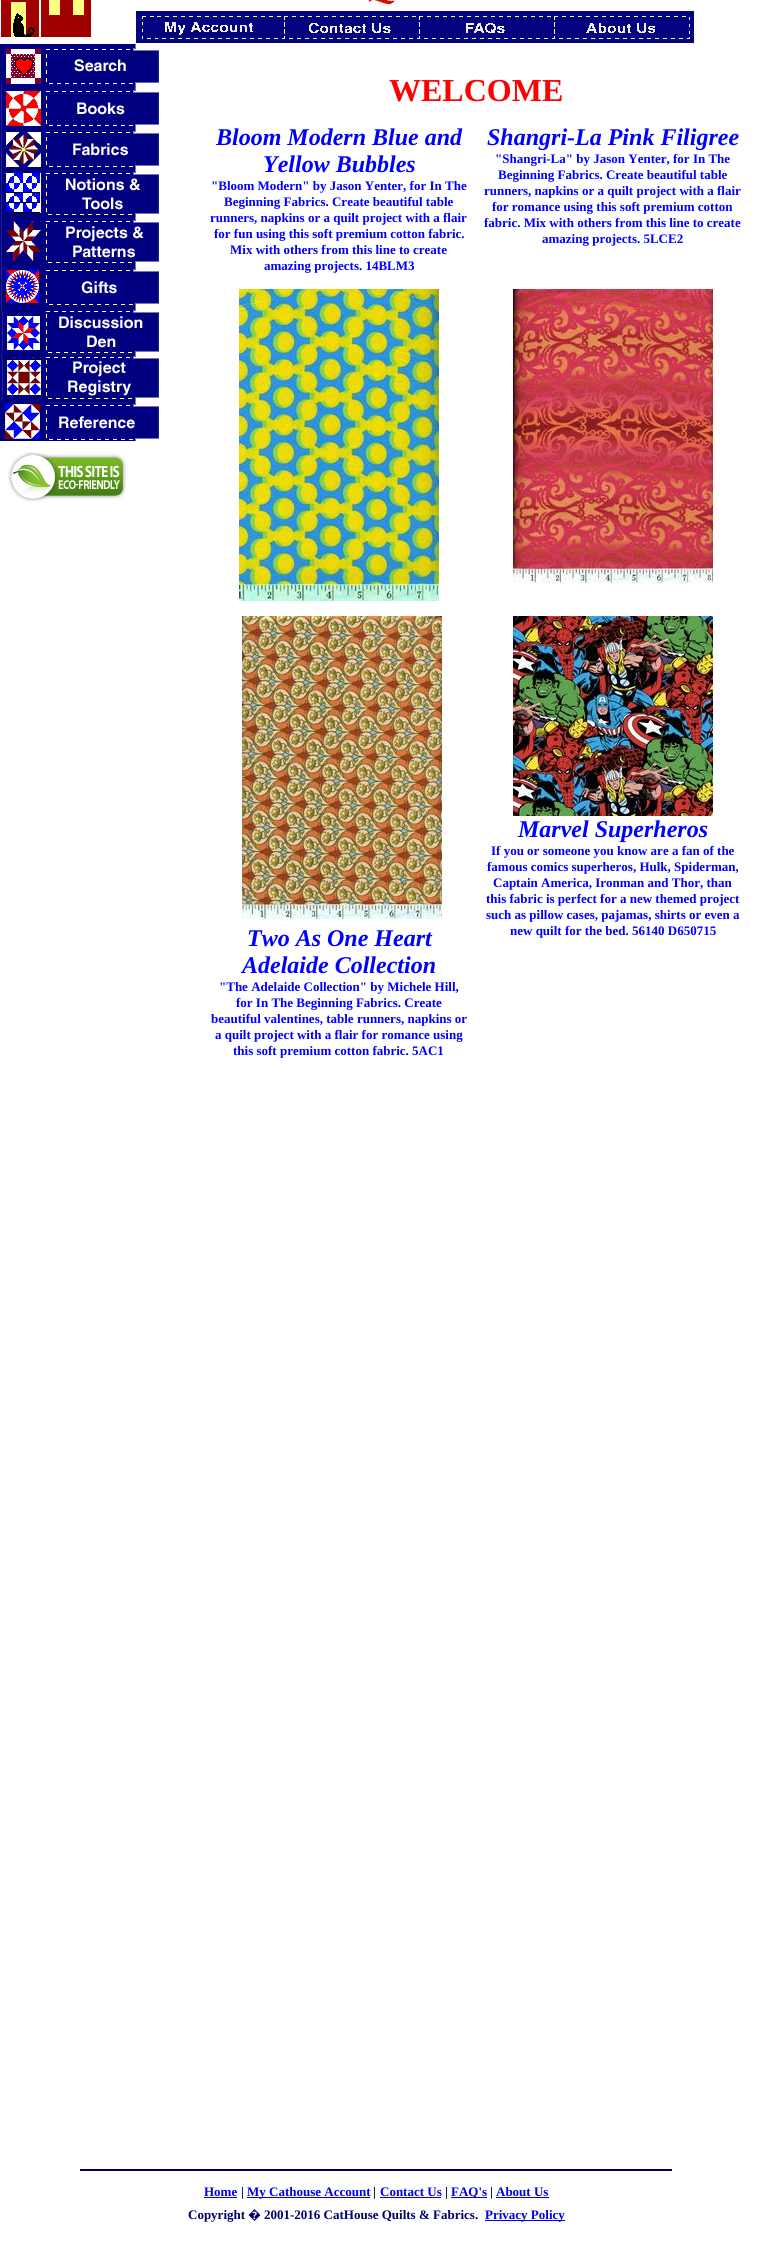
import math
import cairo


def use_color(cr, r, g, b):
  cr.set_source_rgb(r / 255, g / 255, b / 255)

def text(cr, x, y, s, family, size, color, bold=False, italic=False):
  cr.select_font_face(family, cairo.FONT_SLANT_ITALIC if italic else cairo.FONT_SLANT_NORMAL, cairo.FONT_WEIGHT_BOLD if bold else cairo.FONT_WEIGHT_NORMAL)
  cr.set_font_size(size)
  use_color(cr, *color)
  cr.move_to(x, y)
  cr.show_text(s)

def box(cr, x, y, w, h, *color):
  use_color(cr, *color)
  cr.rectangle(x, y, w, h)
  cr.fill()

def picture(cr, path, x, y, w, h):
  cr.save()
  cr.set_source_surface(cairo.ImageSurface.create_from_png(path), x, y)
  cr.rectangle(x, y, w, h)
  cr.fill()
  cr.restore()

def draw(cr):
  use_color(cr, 255, 255, 255)
  cr.paint()
  picture(cr, "img_01.png", 1, 0, 90, 37)
  picture(cr, "img_02.png", 368, 0, 32, 8)
  picture(cr, "img_03.png", 136, 11, 558, 32)
  picture(cr, "img_04.png", 0, 44, 159, 397)
  picture(cr, "img_05.png", 8, 452, 118, 50)
  picture(cr, "img_06.png", 239, 289, 200, 312)
  picture(cr, "img_07.png", 513, 289, 200, 294)
  picture(cr, "img_08.png", 513, 616, 200, 200)
  picture(cr, "img_09.png", 242, 616, 200, 303)
  box(cr, 80, 2169, 592, 2, 0, 0, 102)
  box(cr, 204, 2197, 33, 1, 0, 0, 238)
  box(cr, 247, 2197, 123, 1, 0, 0, 238)
  box(cr, 380, 2197, 61, 1, 0, 0, 238)
  box(cr, 451, 2197, 36, 1, 0, 0, 238)
  box(cr, 496, 2197, 53, 1, 0, 0, 238)
  box(cr, 485, 2220, 80, 1, 0, 0, 238)
  text(cr, 389, 101, "WELCOME", "Liberation Serif", 32, (255, 0, 0), bold=True)
  text(cr, 216, 145, "Bloom Modern Blue and", "Liberation Serif", 24, (0, 0, 255), bold=True, italic=True)
  text(cr, 263, 172, "Yellow Bubbles", "Liberation Serif", 24, (0, 0, 255), bold=True, italic=True)
  text(cr, 211, 190, "\"Bloom Modern\" by Jason Yenter, for In The", "Liberation Serif", 13, (0, 0, 255), bold=True)
  text(cr, 224, 206, "Beginning Fabrics. Create beautiful table", "Liberation Serif", 13, (0, 0, 255), bold=True)
  text(cr, 210, 222, "runners, napkins or a quilt project with a flair", "Liberation Serif", 13, (0, 0, 255), bold=True)
  text(cr, 214, 238, "for fun using this soft premium cotton fabric.", "Liberation Serif", 13, (0, 0, 255), bold=True)
  text(cr, 230, 254, "Mix with others from this line to create", "Liberation Serif", 13, (0, 0, 255), bold=True)
  text(cr, 264, 270, "amazing projects. 14BLM3", "Liberation Serif", 13, (0, 0, 255), bold=True)
  text(cr, 487, 145, "Shangri-La Pink Filigree", "Liberation Serif", 24, (0, 0, 255), bold=True, italic=True)
  text(cr, 495, 163, "\"Shangri-La\" by Jason Yenter, for In The", "Liberation Serif", 13, (0, 0, 255), bold=True)
  text(cr, 498, 179, "Beginning Fabrics. Create beautiful table", "Liberation Serif", 13, (0, 0, 255), bold=True)
  text(cr, 484, 195, "runners, napkins or a quilt project with a flair", "Liberation Serif", 13, (0, 0, 255), bold=True)
  text(cr, 492, 211, "for romance using this soft premium cotton", "Liberation Serif", 13, (0, 0, 255), bold=True)
  text(cr, 484, 227, "fabric. Mix with others from this line to create", "Liberation Serif", 13, (0, 0, 255), bold=True)
  text(cr, 542, 243, "amazing projects. 5LCE2", "Liberation Serif", 13, (0, 0, 255), bold=True)
  text(cr, 518, 837, "Marvel Superheros", "Liberation Serif", 24, (0, 0, 255), bold=True, italic=True)
  text(cr, 491, 855, "If you or someone you know are a fan of the", "Liberation Serif", 13, (0, 0, 255), bold=True)
  text(cr, 487, 871, "famous comics superheros, Hulk, Spiderman,", "Liberation Serif", 13, (0, 0, 255), bold=True)
  text(cr, 493, 887, "Captain America, Ironman and Thor, than", "Liberation Serif", 13, (0, 0, 255), bold=True)
  text(cr, 486, 903, "this fabric is perfect for a new themed project", "Liberation Serif", 13, (0, 0, 255), bold=True)
  text(cr, 486, 919, "such as pillow cases, pajamas, shirts or even a", "Liberation Serif", 13, (0, 0, 255), bold=True)
  text(cr, 510, 935, "new quilt for the bed. 56140 D650715", "Liberation Serif", 13, (0, 0, 255), bold=True)
  text(cr, 247, 946, "Two As One Heart", "Liberation Serif", 24, (0, 0, 255), bold=True, italic=True)
  text(cr, 242, 973, "Adelaide Collection", "Liberation Serif", 24, (0, 0, 255), bold=True, italic=True)
  text(cr, 219, 991, "\"The Adelaide Collection\" by Michele Hill,", "Liberation Serif", 13, (0, 0, 255), bold=True)
  text(cr, 236, 1007, "for In The Beginning Fabrics. Create", "Liberation Serif", 13, (0, 0, 255), bold=True)
  text(cr, 211, 1023, "beautiful valentines, table runners, napkins or", "Liberation Serif", 13, (0, 0, 255), bold=True)
  text(cr, 215, 1039, "a quilt project with a flair for romance using", "Liberation Serif", 13, (0, 0, 255), bold=True)
  text(cr, 233, 1055, "this soft premium cotton fabric. 5AC1", "Liberation Serif", 13, (0, 0, 255), bold=True)
  text(cr, 204, 2196, "Home", "Liberation Serif", 13, (0, 0, 238), bold=True)
  text(cr, 241, 2196, "|", "Liberation Serif", 13, (0, 0, 102), bold=True)
  text(cr, 247, 2196, "My Cathouse Account", "Liberation Serif", 13, (0, 0, 238), bold=True)
  text(cr, 373, 2196, "|", "Liberation Serif", 13, (0, 0, 102), bold=True)
  text(cr, 380, 2196, "Contact Us", "Liberation Serif", 13, (0, 0, 238), bold=True)
  text(cr, 445, 2196, "|", "Liberation Serif", 13, (0, 0, 102), bold=True)
  text(cr, 451, 2196, "FAQ's", "Liberation Serif", 13, (0, 0, 238), bold=True)
  text(cr, 490, 2196, "|", "Liberation Serif", 13, (0, 0, 102), bold=True)
  text(cr, 496, 2196, "About Us", "Liberation Serif", 13, (0, 0, 238), bold=True)
  text(cr, 188, 2219, "Copyright", "Liberation Serif", 13, (0, 0, 102), bold=True)
  text(cr, 248, 2219, "�", "Noto Sans", 13, (0, 0, 102), bold=True)
  text(cr, 264, 2219, "2001-2016 CatHouse Quilts & Fabrics.", "Liberation Serif", 13, (0, 0, 102), bold=True)
  text(cr, 485, 2219, "Privacy Policy", "Liberation Serif", 13, (0, 0, 238), bold=True)


surface = cairo.ImageSurface(cairo.FORMAT_RGB24, 768, 2260)
cr = cairo.Context(surface)
options = cairo.FontOptions()
options.set_hint_metrics(cairo.HINT_METRICS_OFF)
options.set_hint_style(cairo.HINT_STYLE_NONE)
cr.set_font_options(options)
cr.set_miter_limit(4)
draw(cr)
surface.write_to_png("out.png")
